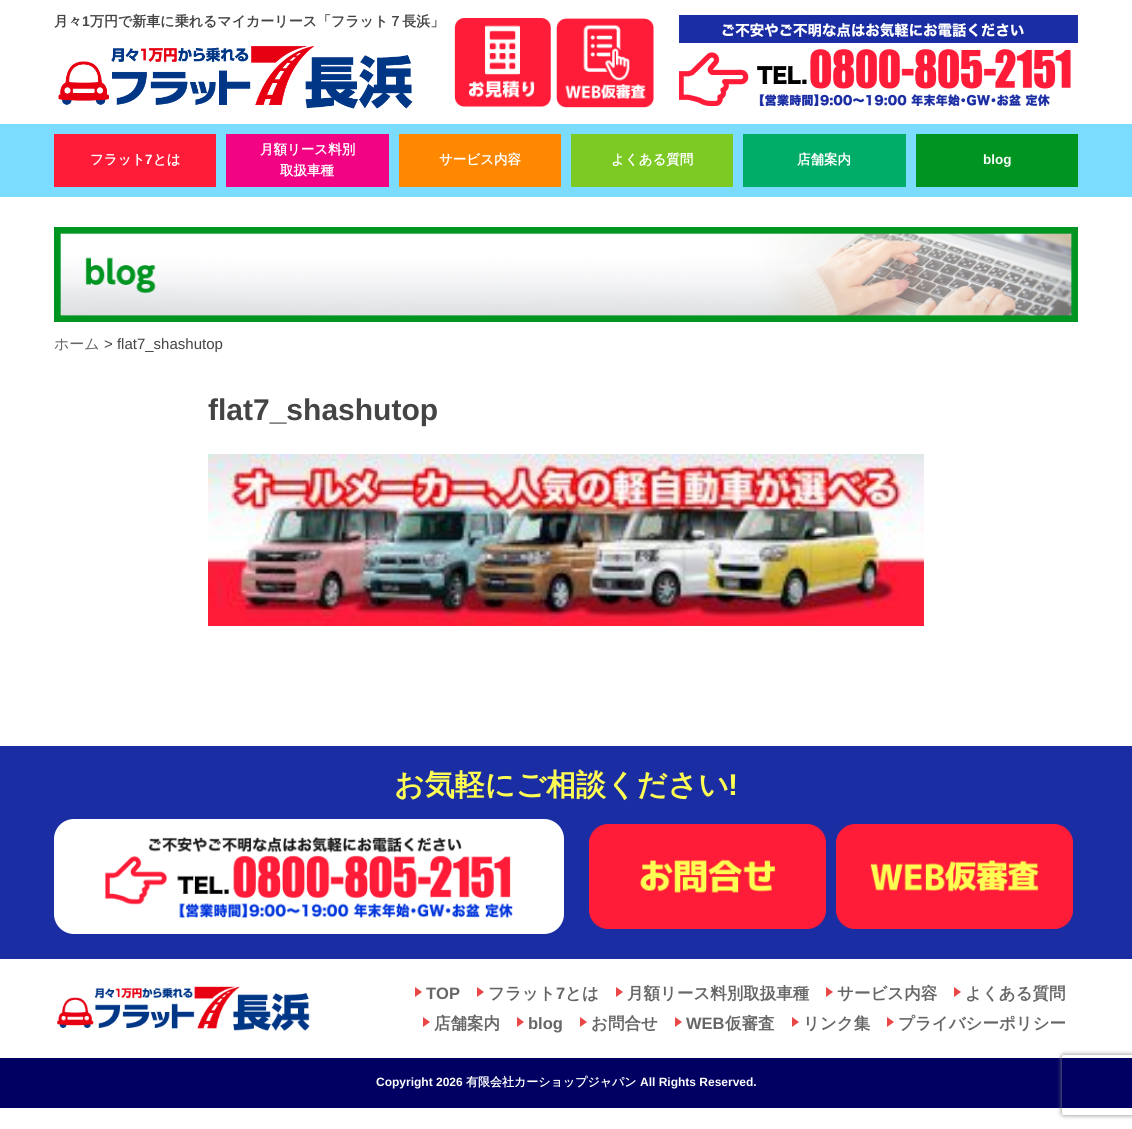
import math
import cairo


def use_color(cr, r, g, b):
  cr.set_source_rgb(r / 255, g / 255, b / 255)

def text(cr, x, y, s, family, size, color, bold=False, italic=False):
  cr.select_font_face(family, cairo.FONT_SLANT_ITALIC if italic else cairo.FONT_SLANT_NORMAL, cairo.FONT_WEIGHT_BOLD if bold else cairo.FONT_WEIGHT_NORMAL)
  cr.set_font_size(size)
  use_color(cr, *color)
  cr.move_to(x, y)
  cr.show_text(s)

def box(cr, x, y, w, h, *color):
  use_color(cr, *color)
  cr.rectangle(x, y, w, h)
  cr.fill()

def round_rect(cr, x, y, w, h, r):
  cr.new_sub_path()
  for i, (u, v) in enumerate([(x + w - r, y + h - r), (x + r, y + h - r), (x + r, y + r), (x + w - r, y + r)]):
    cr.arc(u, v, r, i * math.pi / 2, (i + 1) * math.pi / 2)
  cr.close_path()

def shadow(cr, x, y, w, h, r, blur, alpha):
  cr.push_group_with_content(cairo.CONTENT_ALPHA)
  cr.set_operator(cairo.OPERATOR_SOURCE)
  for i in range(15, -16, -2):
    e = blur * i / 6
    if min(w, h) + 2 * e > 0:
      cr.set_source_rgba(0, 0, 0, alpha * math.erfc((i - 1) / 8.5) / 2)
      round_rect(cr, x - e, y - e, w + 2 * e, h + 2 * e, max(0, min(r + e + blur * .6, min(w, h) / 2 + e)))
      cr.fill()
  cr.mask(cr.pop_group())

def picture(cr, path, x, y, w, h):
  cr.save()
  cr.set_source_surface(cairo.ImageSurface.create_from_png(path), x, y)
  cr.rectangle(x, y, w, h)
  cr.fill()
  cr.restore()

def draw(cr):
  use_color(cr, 255, 255, 255)
  cr.paint()
  picture(cr, "img_01.png", 58, 46, 355, 63)
  picture(cr, "img_02.png", 454, 18, 97, 89)
  picture(cr, "img_03.png", 556, 18, 98, 90)
  picture(cr, "img_04.png", 679, 15, 399, 91)
  box(cr, 0, 124, 1132, 73, 124, 220, 255)
  box(cr, 54, 134, 162, 53, 255, 28, 56)
  box(cr, 226, 134, 163, 53, 242, 3, 131)
  box(cr, 399, 134, 162, 53, 255, 136, 0)
  box(cr, 571, 134, 162, 53, 124, 202, 35)
  box(cr, 743, 134, 163, 53, 0, 173, 104)
  box(cr, 916, 134, 162, 53, 0, 149, 33)
  picture(cr, "img_05.png", 54, 227, 1024, 95)
  picture(cr, "img_06.png", 208, 454, 716, 172)
  box(cr, 0, 746, 1132, 213, 26, 45, 163)
  use_color(cr, 255, 255, 255)
  round_rect(cr, 54, 819, 510, 115, 20)
  cr.fill()
  picture(cr, "img_07.png", 105, 836, 408, 83)
  picture(cr, "img_08.png", 589, 824, 237, 105)
  picture(cr, "img_09.png", 836, 824, 237, 105)
  picture(cr, "img_10.png", 57, 986, 253, 45)
  use_color(cr, 233, 71, 70)
  cr.new_path()
  cr.move_to(415, 997)
  cr.line_to(415, 987)
  cr.line_to(422, 992)
  cr.close_path()
  cr.fill()
  cr.new_path()
  cr.move_to(477, 997)
  cr.line_to(477, 987)
  cr.line_to(484, 992)
  cr.close_path()
  cr.fill()
  cr.new_path()
  cr.move_to(616, 997)
  cr.line_to(616, 987)
  cr.line_to(623, 992)
  cr.close_path()
  cr.fill()
  cr.new_path()
  cr.move_to(826, 997)
  cr.line_to(826, 987)
  cr.line_to(833, 992)
  cr.close_path()
  cr.fill()
  cr.new_path()
  cr.move_to(954, 997)
  cr.line_to(954, 987)
  cr.line_to(961, 992)
  cr.close_path()
  cr.fill()
  cr.new_path()
  cr.move_to(423, 1027)
  cr.line_to(423, 1017)
  cr.line_to(430, 1022)
  cr.close_path()
  cr.fill()
  cr.new_path()
  cr.move_to(517, 1027)
  cr.line_to(517, 1017)
  cr.line_to(524, 1022)
  cr.close_path()
  cr.fill()
  cr.new_path()
  cr.move_to(580, 1027)
  cr.line_to(580, 1017)
  cr.line_to(587, 1022)
  cr.close_path()
  cr.fill()
  cr.new_path()
  cr.move_to(675, 1027)
  cr.line_to(675, 1017)
  cr.line_to(682, 1022)
  cr.close_path()
  cr.fill()
  cr.new_path()
  cr.move_to(792, 1027)
  cr.line_to(792, 1017)
  cr.line_to(799, 1022)
  cr.close_path()
  cr.fill()
  cr.new_path()
  cr.move_to(887, 1027)
  cr.line_to(887, 1017)
  cr.line_to(894, 1022)
  cr.close_path()
  cr.fill()
  box(cr, 0, 1058, 1132, 50, 0, 0, 98)
  cr.save()
  cr.set_fill_rule(cairo.FILL_RULE_EVEN_ODD)
  cr.new_path()
  cr.move_to(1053, 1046)
  cr.line_to(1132, 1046)
  cr.line_to(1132, 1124)
  cr.line_to(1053, 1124)
  cr.close_path()
  cr.move_to(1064, 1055)
  cr.line_to(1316, 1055)
  cr.curve_to(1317, 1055, 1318, 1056, 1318, 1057)
  cr.line_to(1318, 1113)
  cr.curve_to(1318, 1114, 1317, 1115, 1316, 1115)
  cr.line_to(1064, 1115)
  cr.curve_to(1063, 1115, 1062, 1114, 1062, 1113)
  cr.line_to(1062, 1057)
  cr.curve_to(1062, 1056, 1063, 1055, 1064, 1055)
  cr.close_path()
  cr.clip()
  use_color(cr, 128, 128, 128)
  shadow(cr, 1062, 1055, 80, 60, 2, 2.5, 1)
  cr.restore()
  text(cr, 54, 26, "月々", "WenQuanYi Zen Hei", 14, (68, 68, 68), bold=True)
  text(cr, 82, 26, "1", "Liberation Sans", 14, (68, 68, 68), bold=True)
  text(cr, 90, 26, "万円で新車に乗れるマイカーリース「フラット７長浜」", "WenQuanYi Zen Hei", 14, (68, 68, 68), bold=True)
  text(cr, 90, 164, "フラット", "WenQuanYi Zen Hei", 13.5, (255, 255, 255), bold=True)
  text(cr, 145, 164, "7", "Liberation Sans", 13.5, (255, 255, 255), bold=True)
  text(cr, 153, 164, "とは", "WenQuanYi Zen Hei", 13.5, (255, 255, 255), bold=True)
  text(cr, 260, 154, "月額リース料別", "WenQuanYi Zen Hei", 13.5, (255, 255, 255), bold=True)
  text(cr, 280, 175, "取扱車種", "WenQuanYi Zen Hei", 13.5, (255, 255, 255), bold=True)
  text(cr, 439, 164, "サービス内容", "WenQuanYi Zen Hei", 13.5, (255, 255, 255), bold=True)
  text(cr, 611, 164, "よくある質問", "WenQuanYi Zen Hei", 13.5, (255, 255, 255), bold=True)
  text(cr, 797, 164, "店舗案内", "WenQuanYi Zen Hei", 13.5, (255, 255, 255), bold=True)
  text(cr, 983, 164, "blog", "Liberation Sans", 13.5, (255, 255, 255), bold=True)
  text(cr, 54, 349, "ホーム", "WenQuanYi Zen Hei Medium", 15, (102, 102, 102))
  text(cr, 104, 349, "> flat7_shashutop", "Liberation Sans", 15, (68, 68, 68))
  text(cr, 208, 420, "flat7_shashutop", "Liberation Sans", 30, (68, 68, 68), bold=True)
  text(cr, 394, 795, "お気軽にご相談ください", "WenQuanYi Zen Hei", 30, (255, 255, 83), bold=True)
  text(cr, 728, 795, "!", "Liberation Sans", 30, (255, 255, 83), bold=True)
  text(cr, 426, 999, "TOP", "Liberation Sans", 16.5, (102, 102, 102), bold=True)
  text(cr, 488, 999, "フラット", "WenQuanYi Zen Hei", 16.5, (102, 102, 102), bold=True)
  text(cr, 556, 999, "7", "Liberation Sans", 16.5, (102, 102, 102), bold=True)
  text(cr, 565, 999, "とは", "WenQuanYi Zen Hei", 16.5, (102, 102, 102), bold=True)
  text(cr, 627, 999, "月額リース料別取扱車種", "WenQuanYi Zen Hei", 16.5, (102, 102, 102), bold=True)
  text(cr, 837, 999, "サービス内容", "WenQuanYi Zen Hei", 16.5, (102, 102, 102), bold=True)
  text(cr, 965, 999, "よくある質問", "WenQuanYi Zen Hei", 16.5, (102, 102, 102), bold=True)
  text(cr, 434, 1029, "店舗案内", "WenQuanYi Zen Hei", 16.5, (102, 102, 102), bold=True)
  text(cr, 528, 1029, "blog", "Liberation Sans", 16.5, (102, 102, 102), bold=True)
  text(cr, 591, 1029, "お問合せ", "WenQuanYi Zen Hei", 16.5, (102, 102, 102), bold=True)
  text(cr, 686, 1029, "WEB", "Liberation Sans", 16.5, (102, 102, 102), bold=True)
  text(cr, 725, 1029, "仮審査", "WenQuanYi Zen Hei", 16.5, (102, 102, 102), bold=True)
  text(cr, 803, 1029, "リンク集", "WenQuanYi Zen Hei", 16.5, (102, 102, 102), bold=True)
  text(cr, 898, 1029, "プライバシーポリシー", "WenQuanYi Zen Hei", 16.5, (102, 102, 102), bold=True)
  text(cr, 376, 1086, "Copyright 2026", "Liberation Sans", 12, (255, 255, 255), bold=True)
  text(cr, 466, 1086, "有限会社カーショップジャパン", "WenQuanYi Zen Hei", 12, (255, 255, 255), bold=True)
  text(cr, 640, 1086, "All Rights Reserved.", "Liberation Sans", 12, (255, 255, 255), bold=True)


surface = cairo.ImageSurface(cairo.FORMAT_RGB24, 1132, 1129)
cr = cairo.Context(surface)
options = cairo.FontOptions()
options.set_hint_metrics(cairo.HINT_METRICS_OFF)
options.set_hint_style(cairo.HINT_STYLE_NONE)
cr.set_font_options(options)
cr.set_miter_limit(4)
draw(cr)
surface.write_to_png("out.png")
